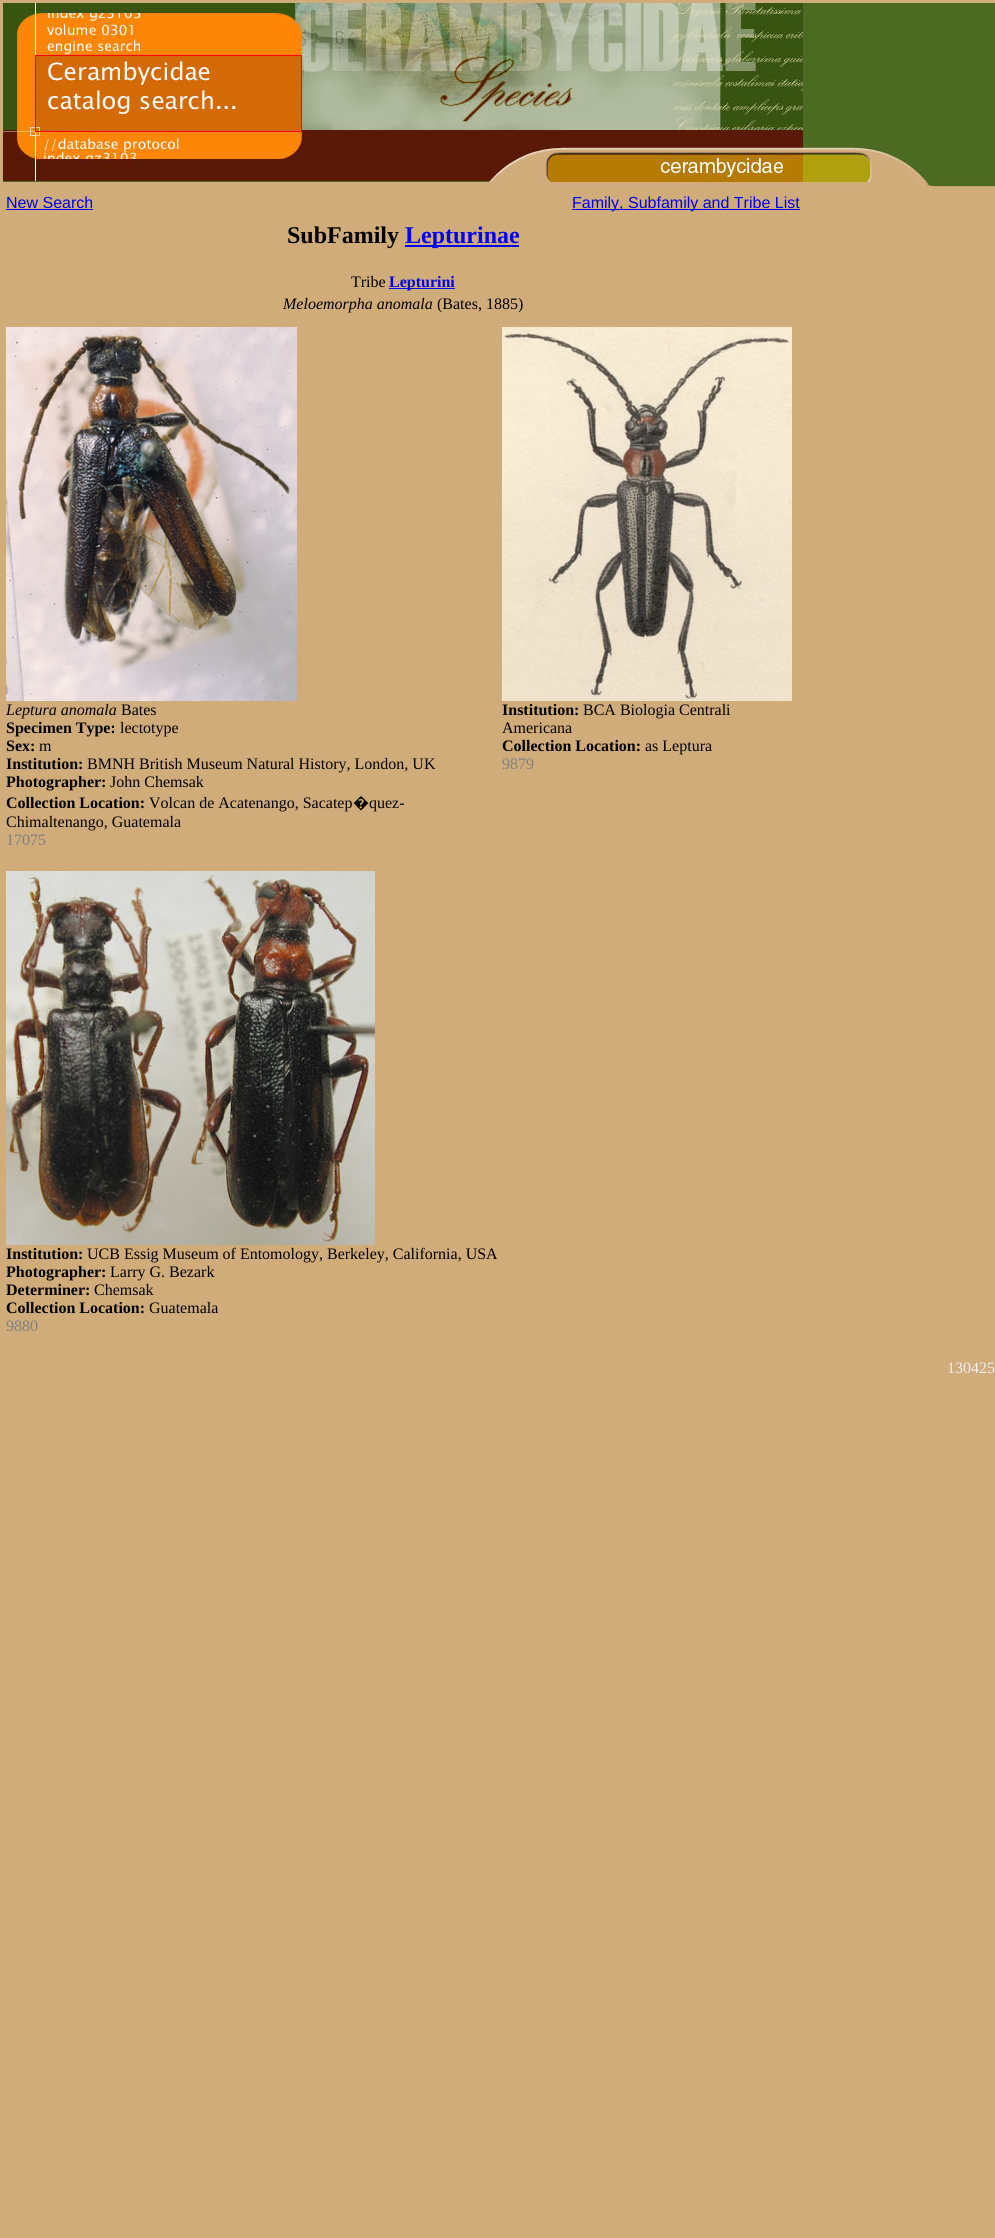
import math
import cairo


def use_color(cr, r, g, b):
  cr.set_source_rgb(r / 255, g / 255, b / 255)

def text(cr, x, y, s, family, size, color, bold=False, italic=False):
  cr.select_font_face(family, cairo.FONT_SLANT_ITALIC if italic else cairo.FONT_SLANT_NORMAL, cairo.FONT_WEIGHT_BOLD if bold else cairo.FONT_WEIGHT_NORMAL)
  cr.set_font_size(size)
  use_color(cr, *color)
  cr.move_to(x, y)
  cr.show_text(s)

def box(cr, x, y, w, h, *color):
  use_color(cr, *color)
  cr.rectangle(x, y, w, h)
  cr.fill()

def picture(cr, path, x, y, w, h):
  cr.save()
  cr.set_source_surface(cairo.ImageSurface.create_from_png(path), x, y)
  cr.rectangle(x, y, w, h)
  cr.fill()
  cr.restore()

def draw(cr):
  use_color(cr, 209, 172, 123)
  cr.paint()
  picture(cr, "img_01.png", 3, 3, 992, 184)
  box(cr, 6, 209, 87, 1, 0, 0, 238)
  box(cr, 572, 209, 228, 1, 0, 0, 238)
  box(cr, 405, 245, 114, 2, 0, 0, 238)
  box(cr, 389, 288, 66, 1, 0, 0, 238)
  picture(cr, "img_02.png", 6, 327, 291, 374)
  picture(cr, "img_03.png", 502, 327, 290, 374)
  picture(cr, "img_04.png", 6, 871, 369, 374)
  text(cr, 6, 208, "New Search", "Liberation Sans", 16, (0, 0, 238))
  text(cr, 572, 208, "Family, Subfamily and Tribe List", "Liberation Sans", 16, (0, 0, 238))
  text(cr, 287, 243, "SubFamily", "Liberation Serif", 24, (0, 0, 0), bold=True)
  text(cr, 405, 243, "Lepturinae", "Liberation Serif", 24, (0, 0, 238), bold=True)
  text(cr, 351, 287, "Tribe", "Liberation Serif", 16, (0, 0, 0))
  text(cr, 389, 287, "Lepturini", "Liberation Serif", 16, (0, 0, 238), bold=True)
  text(cr, 283, 309, "Meloemorpha anomala", "Liberation Serif", 16, (0, 0, 0), italic=True)
  text(cr, 437, 309, "(Bates, 1885)", "Liberation Serif", 16, (0, 0, 0))
  text(cr, 6, 715, "Leptura anomala", "Liberation Serif", 16, (0, 0, 0), italic=True)
  text(cr, 121, 715, "Bates", "Liberation Serif", 16, (0, 0, 0))
  text(cr, 6, 733, "Specimen Type:", "Liberation Serif", 16, (0, 0, 0), bold=True)
  text(cr, 120, 733, "lectotype", "Liberation Serif", 16, (0, 0, 0))
  text(cr, 6, 751, "Sex:", "Liberation Serif", 16, (0, 0, 0), bold=True)
  text(cr, 39, 751, "m", "Liberation Serif", 16, (0, 0, 0))
  text(cr, 6, 769, "Institution:", "Liberation Serif", 16, (0, 0, 0), bold=True)
  text(cr, 87, 769, "BMNH British Museum Natural History, London, UK", "Liberation Serif", 16, (0, 0, 0))
  text(cr, 6, 787, "Photographer:", "Liberation Serif", 16, (0, 0, 0), bold=True)
  text(cr, 110, 787, "John Chemsak", "Liberation Serif", 16, (0, 0, 0))
  text(cr, 6, 808, "Collection Location:", "Liberation Serif", 16, (0, 0, 0), bold=True)
  text(cr, 149, 808, "Volcan de Acatenango, Sacatep", "Liberation Serif", 16, (0, 0, 0))
  text(cr, 353, 808, "�", "Noto Sans", 16, (0, 0, 0))
  text(cr, 369, 808, "quez-", "Liberation Serif", 16, (0, 0, 0))
  text(cr, 6, 827, "Chimaltenango, Guatemala", "Liberation Serif", 16, (0, 0, 0))
  text(cr, 6, 845, "17075", "Liberation Serif", 16, (128, 128, 128))
  text(cr, 502, 715, "Institution:", "Liberation Serif", 16, (0, 0, 0), bold=True)
  text(cr, 583, 715, "BCA Biologia Centrali", "Liberation Serif", 16, (0, 0, 0))
  text(cr, 502, 733, "Americana", "Liberation Serif", 16, (0, 0, 0))
  text(cr, 502, 751, "Collection Location:", "Liberation Serif", 16, (0, 0, 0), bold=True)
  text(cr, 645, 751, "as Leptura", "Liberation Serif", 16, (0, 0, 0))
  text(cr, 502, 769, "9879", "Liberation Serif", 16, (128, 128, 128))
  text(cr, 6, 1259, "Institution:", "Liberation Serif", 16, (0, 0, 0), bold=True)
  text(cr, 87, 1259, "UCB Essig Museum of Entomology, Berkeley, California, USA", "Liberation Serif", 16, (0, 0, 0))
  text(cr, 6, 1277, "Photographer:", "Liberation Serif", 16, (0, 0, 0), bold=True)
  text(cr, 110, 1277, "Larry G. Bezark", "Liberation Serif", 16, (0, 0, 0))
  text(cr, 6, 1295, "Determiner:", "Liberation Serif", 16, (0, 0, 0), bold=True)
  text(cr, 94, 1295, "Chemsak", "Liberation Serif", 16, (0, 0, 0))
  text(cr, 6, 1313, "Collection Location:", "Liberation Serif", 16, (0, 0, 0), bold=True)
  text(cr, 149, 1313, "Guatemala", "Liberation Serif", 16, (0, 0, 0))
  text(cr, 6, 1331, "9880", "Liberation Serif", 16, (128, 128, 128))
  text(cr, 947, 1373, "130425", "Liberation Serif", 16, (238, 238, 238))


surface = cairo.ImageSurface(cairo.FORMAT_RGB24, 995, 2238)
cr = cairo.Context(surface)
options = cairo.FontOptions()
options.set_hint_metrics(cairo.HINT_METRICS_OFF)
options.set_hint_style(cairo.HINT_STYLE_NONE)
cr.set_font_options(options)
cr.set_miter_limit(4)
draw(cr)
surface.write_to_png("out.png")
